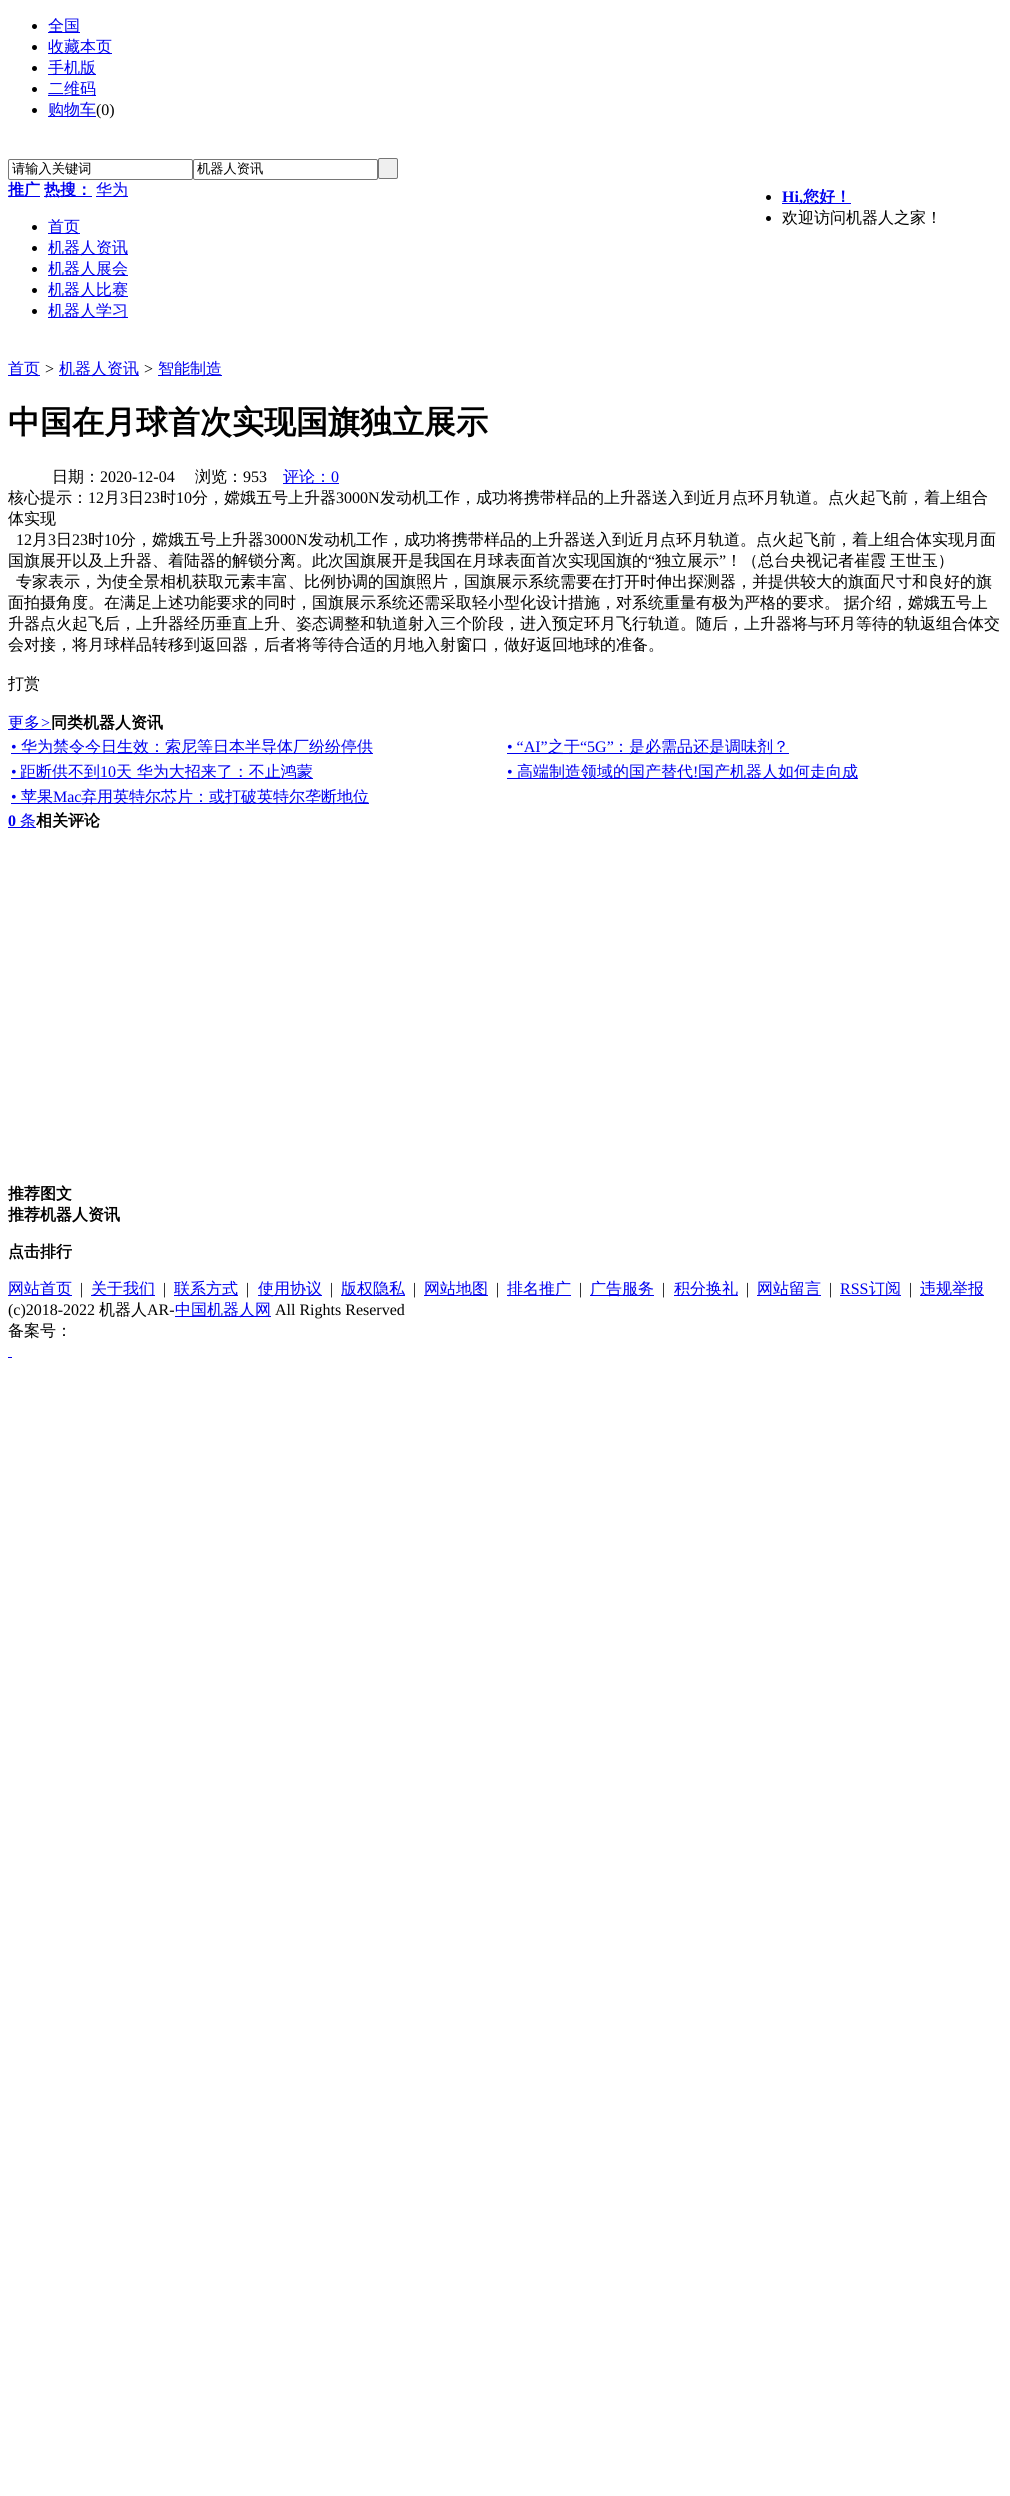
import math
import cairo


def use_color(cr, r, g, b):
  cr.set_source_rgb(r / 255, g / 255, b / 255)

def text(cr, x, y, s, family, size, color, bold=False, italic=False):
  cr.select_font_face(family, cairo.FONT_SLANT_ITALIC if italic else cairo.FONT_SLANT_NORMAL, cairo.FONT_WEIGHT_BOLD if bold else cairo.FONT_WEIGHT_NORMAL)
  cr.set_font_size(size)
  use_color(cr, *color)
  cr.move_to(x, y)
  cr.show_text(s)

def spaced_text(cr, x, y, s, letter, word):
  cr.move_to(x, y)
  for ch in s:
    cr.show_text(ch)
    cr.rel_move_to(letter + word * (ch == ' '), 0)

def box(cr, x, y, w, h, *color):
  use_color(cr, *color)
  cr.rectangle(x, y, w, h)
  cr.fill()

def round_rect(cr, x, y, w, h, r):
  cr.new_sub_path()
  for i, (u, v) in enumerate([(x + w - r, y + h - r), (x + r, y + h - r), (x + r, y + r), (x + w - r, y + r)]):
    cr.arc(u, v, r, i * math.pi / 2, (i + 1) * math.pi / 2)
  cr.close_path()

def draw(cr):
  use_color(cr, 255, 255, 255)
  cr.paint()
  use_color(cr, 0, 0, 0)
  cr.arc(34.5, 26.5, 2.5, 0, 2 * math.pi)
  cr.fill()
  box(cr, 48, 32, 32, 1, 0, 0, 238)
  use_color(cr, 0, 0, 0)
  cr.arc(34.5, 47.5, 2.5, 0, 2 * math.pi)
  cr.fill()
  box(cr, 48, 53, 64, 1, 0, 0, 238)
  use_color(cr, 0, 0, 0)
  cr.arc(34.5, 68.5, 2.5, 0, 2 * math.pi)
  cr.fill()
  box(cr, 48, 74, 48, 1, 0, 0, 238)
  use_color(cr, 0, 0, 0)
  cr.arc(34.5, 89.5, 2.5, 0, 2 * math.pi)
  cr.fill()
  box(cr, 48, 95, 48, 1, 0, 0, 238)
  use_color(cr, 0, 0, 0)
  cr.arc(34.5, 110.5, 2.5, 0, 2 * math.pi)
  cr.fill()
  box(cr, 48, 116, 48, 1, 0, 0, 238)
  round_rect(cr, 8.5, 159.5, 184, 20, 1.5)
  use_color(cr, 118, 118, 118)
  cr.set_line_width(1)
  cr.stroke()
  round_rect(cr, 193.5, 159.5, 184, 20, 1.5)
  cr.stroke()
  use_color(cr, 239, 239, 239)
  round_rect(cr, 378.5, 158.5, 19, 20, 1.5)
  cr.fill_preserve()
  use_color(cr, 118, 118, 118)
  cr.stroke()
  box(cr, 8, 196, 32, 1, 0, 0, 238)
  box(cr, 44, 196, 48, 1, 0, 0, 238)
  box(cr, 96, 196, 32, 1, 0, 0, 238)
  use_color(cr, 0, 0, 0)
  cr.arc(768.5, 197.5, 2.5, 0, 2 * math.pi)
  cr.fill()
  box(cr, 782, 203, 69, 1, 0, 0, 238)
  use_color(cr, 0, 0, 0)
  cr.arc(768.5, 218.5, 2.5, 0, 2 * math.pi)
  cr.fill()
  cr.arc(34.5, 227.5, 2.5, 0, 2 * math.pi)
  cr.fill()
  box(cr, 48, 233, 32, 1, 0, 0, 238)
  use_color(cr, 0, 0, 0)
  cr.arc(34.5, 248.5, 2.5, 0, 2 * math.pi)
  cr.fill()
  box(cr, 48, 254, 80, 1, 0, 0, 238)
  use_color(cr, 0, 0, 0)
  cr.arc(34.5, 269.5, 2.5, 0, 2 * math.pi)
  cr.fill()
  box(cr, 48, 275, 80, 1, 0, 0, 238)
  use_color(cr, 0, 0, 0)
  cr.arc(34.5, 290.5, 2.5, 0, 2 * math.pi)
  cr.fill()
  box(cr, 48, 296, 80, 1, 0, 0, 238)
  use_color(cr, 0, 0, 0)
  cr.arc(34.5, 311.5, 2.5, 0, 2 * math.pi)
  cr.fill()
  box(cr, 48, 317, 80, 1, 0, 0, 238)
  box(cr, 8, 375, 32, 1, 0, 0, 238)
  box(cr, 59, 375, 80, 1, 0, 0, 238)
  box(cr, 158, 375, 64, 1, 0, 0, 238)
  box(cr, 283, 483, 56, 1, 0, 0, 238)
  box(cr, 8, 729, 43, 1, 0, 0, 238)
  box(cr, 11, 753, 362, 1, 0, 0, 238)
  box(cr, 507, 753, 282, 1, 0, 0, 238)
  box(cr, 11, 778, 302, 1, 0, 0, 238)
  box(cr, 507, 778, 351, 1, 0, 0, 238)
  box(cr, 11, 803, 358, 1, 0, 0, 238)
  box(cr, 8, 827, 28, 1, 0, 0, 238)
  box(cr, 8, 1295, 64, 1, 0, 0, 238)
  box(cr, 91, 1295, 64, 1, 0, 0, 238)
  box(cr, 174, 1295, 64, 1, 0, 0, 238)
  box(cr, 258, 1295, 64, 1, 0, 0, 238)
  box(cr, 341, 1295, 64, 1, 0, 0, 238)
  box(cr, 424, 1295, 64, 1, 0, 0, 238)
  box(cr, 507, 1295, 64, 1, 0, 0, 238)
  box(cr, 590, 1295, 64, 1, 0, 0, 238)
  box(cr, 674, 1295, 64, 1, 0, 0, 238)
  box(cr, 757, 1295, 64, 1, 0, 0, 238)
  box(cr, 840, 1295, 61, 1, 0, 0, 238)
  box(cr, 920, 1295, 64, 1, 0, 0, 238)
  box(cr, 175, 1316, 96, 1, 0, 0, 238)
  box(cr, 8, 1357, 4, 1, 0, 0, 238)
  text(cr, 48, 31, "全国", "WenQuanYi Zen Hei Medium", 16, (0, 0, 238))
  text(cr, 48, 52, "收藏本页", "WenQuanYi Zen Hei Medium", 16, (0, 0, 238))
  text(cr, 48, 73, "手机版", "WenQuanYi Zen Hei Medium", 16, (0, 0, 238))
  text(cr, 48, 94, "二维码", "WenQuanYi Zen Hei Medium", 16, (0, 0, 238))
  text(cr, 48, 115, "购物车", "WenQuanYi Zen Hei Medium", 16, (0, 0, 238))
  text(cr, 96, 115, "(0)", "Liberation Serif", 16, (0, 0, 0))
  text(cr, 12, 173, "请输入关键词", "WenQuanYi Zen Hei Medium", 13.25, (0, 0, 0))
  text(cr, 197, 173, "机器人资讯", "WenQuanYi Zen Hei Medium", 13.25, (0, 0, 0))
  text(cr, 8, 195, "推广", "WenQuanYi Zen Hei", 16, (0, 0, 238), bold=True)
  text(cr, 44, 195, "热搜：", "WenQuanYi Zen Hei", 16, (0, 0, 238), bold=True)
  text(cr, 96, 195, "华为", "WenQuanYi Zen Hei Medium", 16, (0, 0, 238))
  text(cr, 782, 202, "Hi,", "Liberation Serif", 16, (0, 0, 238), bold=True)
  text(cr, 803, 202, "您好！", "WenQuanYi Zen Hei", 16, (0, 0, 238), bold=True)
  text(cr, 782, 223, "欢迎访问机器人之家！", "WenQuanYi Zen Hei Medium", 16, (0, 0, 0))
  text(cr, 48, 232, "首页", "WenQuanYi Zen Hei Medium", 16, (0, 0, 238))
  text(cr, 48, 253, "机器人资讯", "WenQuanYi Zen Hei Medium", 16, (0, 0, 238))
  text(cr, 48, 274, "机器人展会", "WenQuanYi Zen Hei Medium", 16, (0, 0, 238))
  text(cr, 48, 295, "机器人比赛", "WenQuanYi Zen Hei Medium", 16, (0, 0, 238))
  text(cr, 48, 316, "机器人学习", "WenQuanYi Zen Hei Medium", 16, (0, 0, 238))
  text(cr, 8, 374, "首页", "WenQuanYi Zen Hei Medium", 16, (0, 0, 238))
  text(cr, 44, 374, ">", "Liberation Serif", 16, (0, 0, 0), italic=True)
  text(cr, 59, 374, "机器人资讯", "WenQuanYi Zen Hei Medium", 16, (0, 0, 238))
  text(cr, 143, 374, ">", "Liberation Serif", 16, (0, 0, 0), italic=True)
  text(cr, 158, 374, "智能制造", "WenQuanYi Zen Hei Medium", 16, (0, 0, 238))
  text(cr, 8, 433, "中国在月球首次实现国旗独立展示", "WenQuanYi Zen Hei", 32, (0, 0, 0), bold=True)
  text(cr, 52, 482, "日期：", "WenQuanYi Zen Hei Medium", 16, (0, 0, 0))
  text(cr, 100, 482, "2020-12-04", "Liberation Serif", 16, (0, 0, 0))
  text(cr, 195, 482, "浏览：", "WenQuanYi Zen Hei Medium", 16, (0, 0, 0))
  text(cr, 243, 482, "953", "Liberation Serif", 16, (0, 0, 0))
  text(cr, 283, 482, "评论：", "WenQuanYi Zen Hei Medium", 16, (0, 0, 238))
  text(cr, 331, 482, "0", "Liberation Serif", 16, (0, 0, 238))
  text(cr, 8, 503, "核心提示：", "WenQuanYi Zen Hei Medium", 16, (0, 0, 0))
  text(cr, 88, 503, "12", "Liberation Serif", 16, (0, 0, 0))
  text(cr, 104, 503, "月", "WenQuanYi Zen Hei Medium", 16, (0, 0, 0))
  text(cr, 120, 503, "3", "Liberation Serif", 16, (0, 0, 0))
  text(cr, 128, 503, "日", "WenQuanYi Zen Hei Medium", 16, (0, 0, 0))
  text(cr, 144, 503, "23", "Liberation Serif", 16, (0, 0, 0))
  text(cr, 160, 503, "时", "WenQuanYi Zen Hei Medium", 16, (0, 0, 0))
  text(cr, 176, 503, "10", "Liberation Serif", 16, (0, 0, 0))
  text(cr, 192, 503, "分，嫦娥五号上升器", "WenQuanYi Zen Hei Medium", 16, (0, 0, 0))
  text(cr, 336, 503, "3000N", "Liberation Serif", 16, (0, 0, 0))
  text(cr, 380, 503, "发动机工作，成功将携带样品的上升器送入到近月点环月轨道。点火起飞前，着上组合", "WenQuanYi Zen Hei Medium", 16, (0, 0, 0))
  text(cr, 8, 524, "体实现", "WenQuanYi Zen Hei Medium", 16, (0, 0, 0))
  text(cr, 16, 545, "12", "Liberation Serif", 16, (0, 0, 0))
  text(cr, 32, 545, "月", "WenQuanYi Zen Hei Medium", 16, (0, 0, 0))
  text(cr, 48, 545, "3", "Liberation Serif", 16, (0, 0, 0))
  text(cr, 56, 545, "日", "WenQuanYi Zen Hei Medium", 16, (0, 0, 0))
  text(cr, 72, 545, "23", "Liberation Serif", 16, (0, 0, 0))
  text(cr, 88, 545, "时", "WenQuanYi Zen Hei Medium", 16, (0, 0, 0))
  text(cr, 104, 545, "10", "Liberation Serif", 16, (0, 0, 0))
  text(cr, 120, 545, "分，嫦娥五号上升器", "WenQuanYi Zen Hei Medium", 16, (0, 0, 0))
  text(cr, 264, 545, "3000N", "Liberation Serif", 16, (0, 0, 0))
  text(cr, 308, 545, "发动机工作，成功将携带样品的上升器送入到近月点环月轨道。点火起飞前，着上组合体实现月面", "WenQuanYi Zen Hei Medium", 16, (0, 0, 0))
  text(cr, 8, 566, "国旗展开以及上升器、着陆器的解锁分离。此次国旗展开是我国在月球表面首次实现国旗的", "WenQuanYi Zen Hei Medium", 16, (0, 0, 0))
  text(cr, 648, 566, "“", "Liberation Serif", 16, (0, 0, 0))
  text(cr, 655, 566, "独立展示", "WenQuanYi Zen Hei Medium", 16, (0, 0, 0))
  text(cr, 719, 566, "”", "Liberation Serif", 16, (0, 0, 0))
  cr.select_font_face("WenQuanYi Zen Hei Medium")
  spaced_text(cr, 726, 566, "！（总台央视记者崔霞 王世玉）", 0, -1)
  text(cr, 16, 587, "专家表示，为使全景相机获取元素丰富、比例协调的国旗照片，国旗展示系统需要在打开时伸出探测器，并提供较大的旗面尺寸和良好的旗", "WenQuanYi Zen Hei Medium", 16, (0, 0, 0))
  spaced_text(cr, 8, 608, "面拍摄角度。在满足上述功能要求的同时，国旗展示系统还需采取轻小型化设计措施，对系统重量有极为严格的要求。 据介绍，嫦娥五号上", 0, -1)
  text(cr, 8, 629, "升器点火起飞后，上升器经历垂直上升、姿态调整和轨道射入三个阶段，进入预定环月飞行轨道。随后，上升器将与环月等待的轨返组合体交", "WenQuanYi Zen Hei Medium", 16, (0, 0, 0))
  text(cr, 8, 650, "会对接，将月球样品转移到返回器，后者将等待合适的月地入射窗口，做好返回地球的准备。", "WenQuanYi Zen Hei Medium", 16, (0, 0, 0))
  text(cr, 8, 689, "打赏", "WenQuanYi Zen Hei Medium", 16, (0, 0, 0))
  text(cr, 8, 728, "更多", "WenQuanYi Zen Hei Medium", 16, (0, 0, 238))
  text(cr, 40, 728, ">", "Liberation Serif", 16, (0, 0, 238), italic=True)
  text(cr, 51, 728, "同类机器人资讯", "WenQuanYi Zen Hei", 16, (0, 0, 0), bold=True)
  text(cr, 11, 752, "•", "Liberation Serif", 16, (0, 0, 238))
  text(cr, 21, 752, "华为禁令今日生效：索尼等日本半导体厂纷纷停供", "WenQuanYi Zen Hei Medium", 16, (0, 0, 238))
  text(cr, 507, 752, "• “AI”", "Liberation Serif", 16, (0, 0, 238))
  text(cr, 548, 752, "之于", "WenQuanYi Zen Hei Medium", 16, (0, 0, 238))
  text(cr, 580, 752, "“5G”", "Liberation Serif", 16, (0, 0, 238))
  text(cr, 613, 752, "：是必需品还是调味剂？", "WenQuanYi Zen Hei Medium", 16, (0, 0, 238))
  text(cr, 11, 777, "•", "Liberation Serif", 16, (0, 0, 238))
  text(cr, 20, 777, "距断供不到", "WenQuanYi Zen Hei Medium", 16, (0, 0, 238))
  text(cr, 100, 777, "10", "Liberation Serif", 16, (0, 0, 238))
  text(cr, 116, 777, "天 华为大招来了：不止鸿蒙", "WenQuanYi Zen Hei Medium", 16, (0, 0, 238))
  text(cr, 507, 777, "•", "Liberation Serif", 16, (0, 0, 238))
  text(cr, 517, 777, "高端制造领域的国产替代", "WenQuanYi Zen Hei Medium", 16, (0, 0, 238))
  text(cr, 693, 777, "!", "Liberation Serif", 16, (0, 0, 238))
  text(cr, 698, 777, "国产机器人如何走向成", "WenQuanYi Zen Hei Medium", 16, (0, 0, 238))
  text(cr, 11, 802, "•", "Liberation Serif", 16, (0, 0, 238))
  text(cr, 21, 802, "苹果", "WenQuanYi Zen Hei Medium", 16, (0, 0, 238))
  text(cr, 53, 802, "Mac", "Liberation Serif", 16, (0, 0, 238))
  text(cr, 81, 802, "弃用英特尔芯片：或打破英特尔垄断地位", "WenQuanYi Zen Hei Medium", 16, (0, 0, 238))
  text(cr, 8, 826, "0", "Liberation Serif", 16, (0, 0, 238), bold=True)
  text(cr, 20, 826, "条", "WenQuanYi Zen Hei Medium", 16, (0, 0, 238))
  text(cr, 36, 826, "相关评论", "WenQuanYi Zen Hei", 16, (0, 0, 0), bold=True)
  text(cr, 8, 1199, "推荐图文", "WenQuanYi Zen Hei", 16, (0, 0, 0), bold=True)
  text(cr, 8, 1220, "推荐机器人资讯", "WenQuanYi Zen Hei", 16, (0, 0, 0), bold=True)
  text(cr, 8, 1257, "点击排行", "WenQuanYi Zen Hei", 16, (0, 0, 0), bold=True)
  text(cr, 8, 1294, "网站首页", "WenQuanYi Zen Hei Medium", 16, (0, 0, 238))
  text(cr, 80, 1294, "|", "Liberation Serif", 16, (0, 0, 0))
  text(cr, 91, 1294, "关于我们", "WenQuanYi Zen Hei Medium", 16, (0, 0, 238))
  text(cr, 163, 1294, "|", "Liberation Serif", 16, (0, 0, 0))
  text(cr, 174, 1294, "联系方式", "WenQuanYi Zen Hei Medium", 16, (0, 0, 238))
  text(cr, 246, 1294, "|", "Liberation Serif", 16, (0, 0, 0))
  text(cr, 258, 1294, "使用协议", "WenQuanYi Zen Hei Medium", 16, (0, 0, 238))
  text(cr, 330, 1294, "|", "Liberation Serif", 16, (0, 0, 0))
  text(cr, 341, 1294, "版权隐私", "WenQuanYi Zen Hei Medium", 16, (0, 0, 238))
  text(cr, 413, 1294, "|", "Liberation Serif", 16, (0, 0, 0))
  text(cr, 424, 1294, "网站地图", "WenQuanYi Zen Hei Medium", 16, (0, 0, 238))
  text(cr, 496, 1294, "|", "Liberation Serif", 16, (0, 0, 0))
  text(cr, 507, 1294, "排名推广", "WenQuanYi Zen Hei Medium", 16, (0, 0, 238))
  text(cr, 579, 1294, "|", "Liberation Serif", 16, (0, 0, 0))
  text(cr, 590, 1294, "广告服务", "WenQuanYi Zen Hei Medium", 16, (0, 0, 238))
  text(cr, 662, 1294, "|", "Liberation Serif", 16, (0, 0, 0))
  text(cr, 674, 1294, "积分换礼", "WenQuanYi Zen Hei Medium", 16, (0, 0, 238))
  text(cr, 746, 1294, "|", "Liberation Serif", 16, (0, 0, 0))
  text(cr, 757, 1294, "网站留言", "WenQuanYi Zen Hei Medium", 16, (0, 0, 238))
  text(cr, 829, 1294, "|", "Liberation Serif", 16, (0, 0, 0))
  text(cr, 840, 1294, "RSS", "Liberation Serif", 16, (0, 0, 238))
  text(cr, 869, 1294, "订阅", "WenQuanYi Zen Hei Medium", 16, (0, 0, 238))
  text(cr, 909, 1294, "|", "Liberation Serif", 16, (0, 0, 0))
  text(cr, 920, 1294, "违规举报", "WenQuanYi Zen Hei Medium", 16, (0, 0, 238))
  text(cr, 8, 1315, "(c)2018-2022", "Liberation Serif", 16, (0, 0, 0))
  text(cr, 99, 1315, "机器人", "WenQuanYi Zen Hei Medium", 16, (0, 0, 0))
  text(cr, 147, 1315, "AR-", "Liberation Serif", 16, (0, 0, 0))
  text(cr, 175, 1315, "中国机器人网", "WenQuanYi Zen Hei Medium", 16, (0, 0, 238))
  text(cr, 275, 1315, "All Rights Reserved", "Liberation Serif", 16, (0, 0, 0))
  text(cr, 8, 1336, "备案号：", "WenQuanYi Zen Hei Medium", 16, (0, 0, 0))


surface = cairo.ImageSurface(cairo.FORMAT_RGB24, 1010, 2496)
cr = cairo.Context(surface)
options = cairo.FontOptions()
options.set_hint_metrics(cairo.HINT_METRICS_OFF)
options.set_hint_style(cairo.HINT_STYLE_NONE)
cr.set_font_options(options)
cr.set_miter_limit(4)
draw(cr)
surface.write_to_png("out.png")
